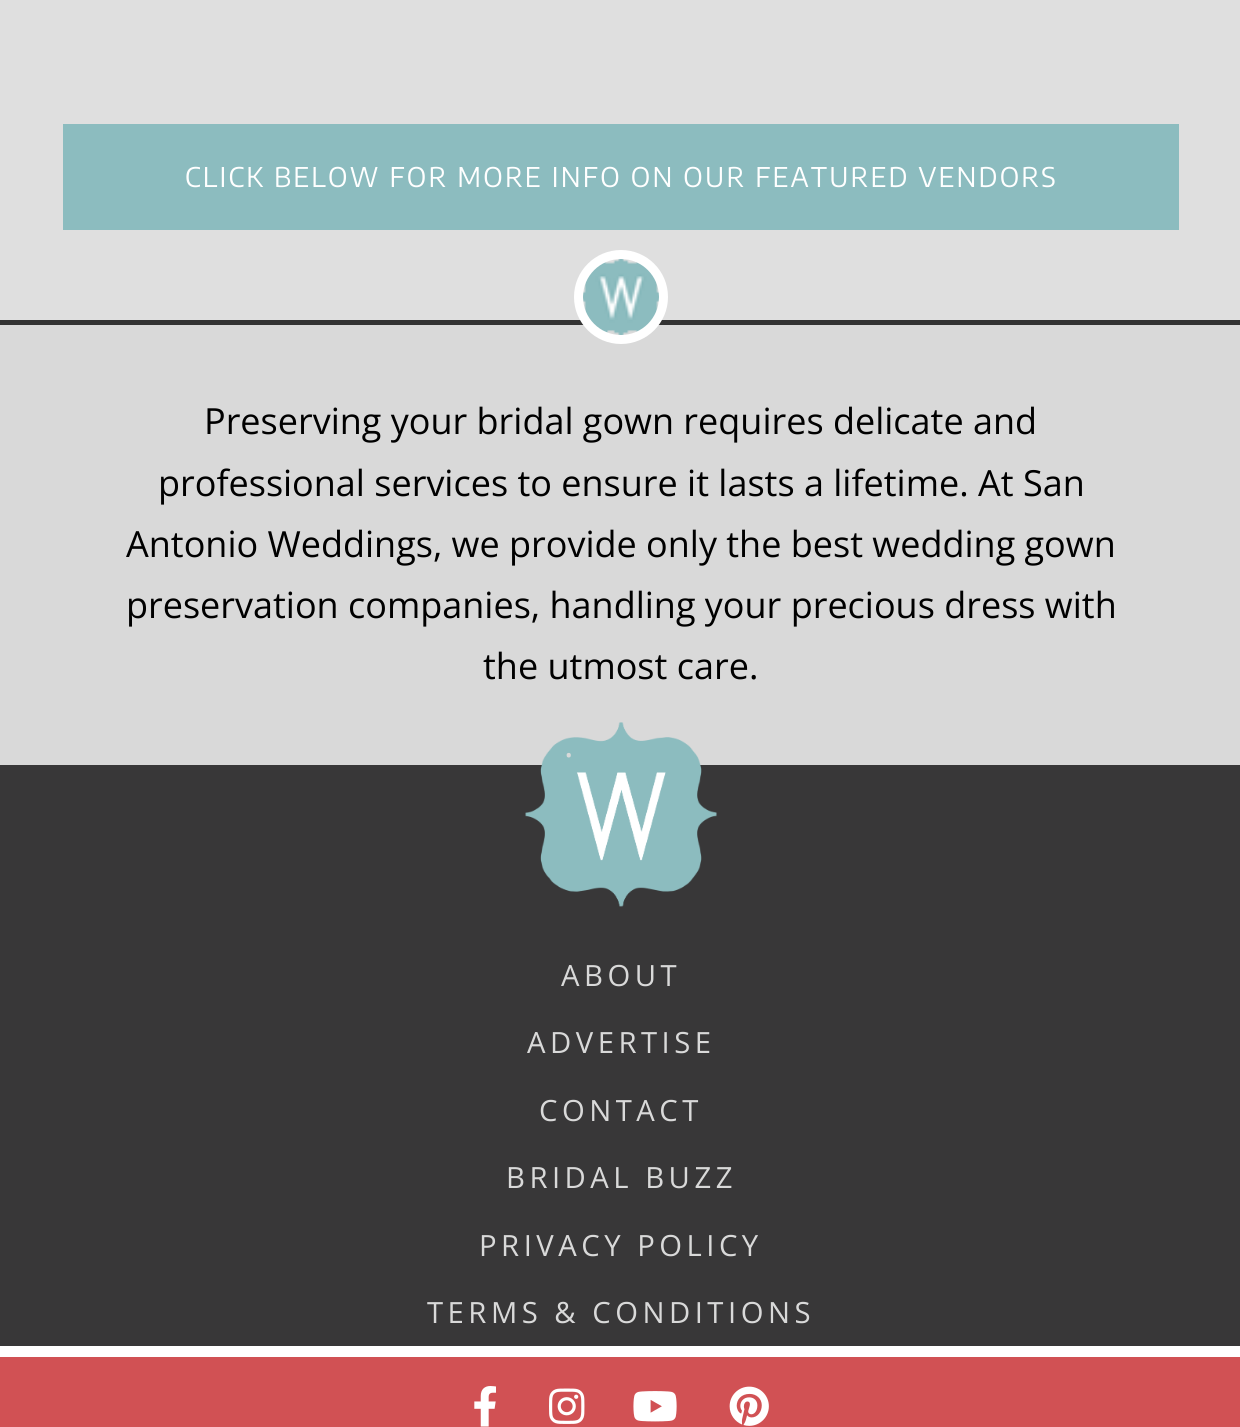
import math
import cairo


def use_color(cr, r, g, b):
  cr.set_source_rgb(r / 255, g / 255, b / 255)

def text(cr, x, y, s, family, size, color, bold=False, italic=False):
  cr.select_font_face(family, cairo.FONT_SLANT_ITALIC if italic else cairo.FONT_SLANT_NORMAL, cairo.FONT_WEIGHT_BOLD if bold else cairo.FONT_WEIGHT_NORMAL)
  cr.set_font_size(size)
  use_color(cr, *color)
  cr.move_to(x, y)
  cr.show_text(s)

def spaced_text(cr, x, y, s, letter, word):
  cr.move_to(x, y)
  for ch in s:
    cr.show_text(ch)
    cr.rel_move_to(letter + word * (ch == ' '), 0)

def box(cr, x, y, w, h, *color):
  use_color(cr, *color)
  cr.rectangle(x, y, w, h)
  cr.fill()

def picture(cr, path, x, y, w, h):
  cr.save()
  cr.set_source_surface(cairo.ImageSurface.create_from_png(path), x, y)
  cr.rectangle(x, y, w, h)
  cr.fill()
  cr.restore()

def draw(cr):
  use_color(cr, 255, 255, 255)
  cr.paint()
  box(cr, 0, 0, 1240, 320, 223, 223, 223)
  box(cr, 63, 124, 1116, 106, 140, 188, 191)
  box(cr, 0, 325, 1240, 440, 217, 217, 217)
  box(cr, 0, 320, 1240, 5, 51, 51, 51)
  picture(cr, "img_01.png", 583, 259, 76, 76)
  cr.arc(621, 297, 42.5, 0, 2 * math.pi)
  use_color(cr, 255, 255, 255)
  cr.set_line_width(9)
  cr.stroke()
  box(cr, 0, 765, 1240, 581, 56, 55, 56)
  picture(cr, "img_02.png", 525, 722, 192, 185)
  box(cr, 0, 1357, 1240, 70, 209, 81, 84)
  picture(cr, "img_03.png", 474, 1386, 22, 41)
  picture(cr, "img_04.png", 549, 1388, 36, 36)
  picture(cr, "img_05.png", 633, 1391, 44, 31)
  picture(cr, "img_06.png", 729, 1386, 40, 40)
  cr.select_font_face("Encode Sans Condensed")
  cr.set_font_size(27)
  use_color(cr, 255, 255, 255)
  spaced_text(cr, 185, 187, "CLICK BELOW FOR MORE INFO ON OUR FEATURED VENDORS", 2.25, 0)
  text(cr, 204, 434, "Preserving your bridal gown requires delicate and", "Open Sans", 36, (0, 0, 0))
  text(cr, 158, 496, "professional services to ensure it lasts a lifetime. At San", "Open Sans", 36, (0, 0, 0))
  text(cr, 126, 557, "Antonio Weddings, we provide only the best wedding gown", "Open Sans", 36, (0, 0, 0))
  text(cr, 126, 618, "preservation companies, handling your precious dress with", "Open Sans", 36, (0, 0, 0))
  text(cr, 483, 679, "the utmost care.", "Open Sans", 36, (0, 0, 0))
  cr.set_font_size(29.25)
  use_color(cr, 217, 217, 217)
  spaced_text(cr, 561, 986, "ABOUT", 4.5, 0)
  spaced_text(cr, 527, 1053, "ADVERTISE", 4.5, 0)
  spaced_text(cr, 539, 1121, "CONTACT", 4.5, 0)
  spaced_text(cr, 506, 1188, "BRIDAL BUZZ", 4.5, 0)
  spaced_text(cr, 479, 1256, "PRIVACY POLICY", 4.5, 0)
  spaced_text(cr, 427, 1323, "TERMS & CONDITIONS", 4.5, 0)
  text(cr, 564, 757, ".", "Open Sans", 36, (217, 217, 217))


surface = cairo.ImageSurface(cairo.FORMAT_RGB24, 1240, 1427)
cr = cairo.Context(surface)
options = cairo.FontOptions()
options.set_hint_metrics(cairo.HINT_METRICS_OFF)
options.set_hint_style(cairo.HINT_STYLE_NONE)
cr.set_font_options(options)
cr.set_miter_limit(4)
draw(cr)
surface.write_to_png("out.png")
